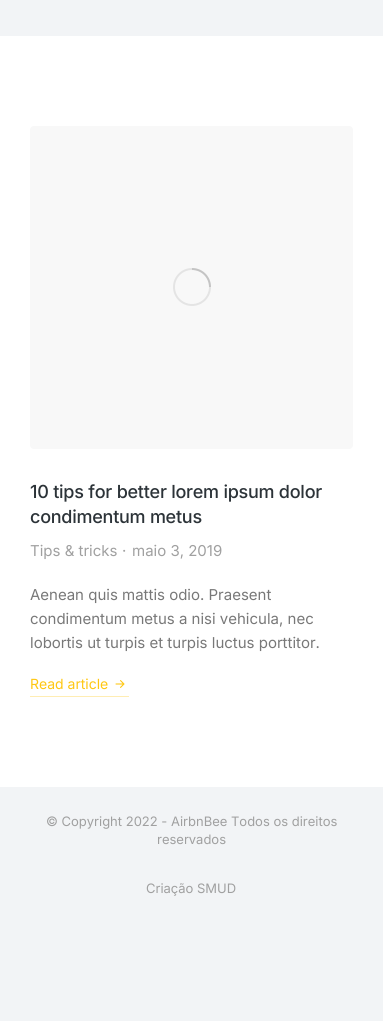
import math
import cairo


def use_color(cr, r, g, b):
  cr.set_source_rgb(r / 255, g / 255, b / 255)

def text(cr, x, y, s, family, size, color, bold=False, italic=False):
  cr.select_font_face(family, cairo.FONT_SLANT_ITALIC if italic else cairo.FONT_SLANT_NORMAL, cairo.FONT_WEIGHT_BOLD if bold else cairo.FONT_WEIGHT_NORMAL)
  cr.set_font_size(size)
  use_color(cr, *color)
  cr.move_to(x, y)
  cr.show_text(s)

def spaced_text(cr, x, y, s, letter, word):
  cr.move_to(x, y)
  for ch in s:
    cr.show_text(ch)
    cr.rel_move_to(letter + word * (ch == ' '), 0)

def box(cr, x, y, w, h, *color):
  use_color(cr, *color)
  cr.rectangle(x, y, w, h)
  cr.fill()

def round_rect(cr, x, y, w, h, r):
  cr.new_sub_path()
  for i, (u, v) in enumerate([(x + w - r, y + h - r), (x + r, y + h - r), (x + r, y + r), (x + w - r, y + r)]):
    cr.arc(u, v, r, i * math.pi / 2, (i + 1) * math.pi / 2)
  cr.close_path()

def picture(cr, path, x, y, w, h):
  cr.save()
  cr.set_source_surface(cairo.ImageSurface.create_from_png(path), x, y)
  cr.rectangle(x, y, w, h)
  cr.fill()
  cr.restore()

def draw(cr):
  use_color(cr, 255, 255, 255)
  cr.paint()
  box(cr, 0, 0, 383, 36, 242, 244, 246)
  use_color(cr, 248, 248, 248)
  round_rect(cr, 30, 126, 323, 323, 4)
  cr.fill()
  cr.arc(192, 287, 18, 0, 2 * math.pi)
  use_color(cr, 228, 228, 228)
  cr.stroke()
  cr.new_path()
  cr.move_to(210, 287)
  cr.curve_to(210, 277, 202, 269, 192, 269)
  cr.set_source_rgba(0.4, 0.4, 0.4, 0.25)
  cr.stroke()
  box(cr, 30, 696, 99, 1, 255, 237, 179)
  picture(cr, "img_01.png", 115, 680, 10, 8)
  box(cr, 0, 787, 383, 234, 242, 244, 246)
  cr.select_font_face("Inter Medium")
  cr.set_font_size(18)
  use_color(cr, 44, 51, 56)
  spaced_text(cr, 30, 498, "10 tips for better lorem ipsum dolor", -0.25, 0)
  spaced_text(cr, 30, 523, "condimentum metus", -0.25, 0)
  text(cr, 30, 556, "Tips & tricks", "Inter", 15, (160, 160, 160))
  text(cr, 122, 556, "·", "Inter", 15, (160, 160, 160))
  text(cr, 132, 556, "maio 3, 2019", "Inter", 15, (160, 160, 160))
  text(cr, 30, 600, "Aenean quis mattis odio. Praesent", "Inter", 15, (120, 120, 120))
  text(cr, 30, 624, "condimentum metus a nisi vehicula, nec", "Inter", 15, (120, 120, 120))
  text(cr, 30, 648, "lobortis ut turpis et turpis luctus porttitor.", "Inter", 15, (120, 120, 120))
  text(cr, 30, 689, "Read article", "Inter", 14, (255, 199, 18))
  text(cr, 46, 826, "© Copyright 2022 - AirbnBee Todos os direitos", "Inter", 13, (160, 160, 160))
  text(cr, 157, 844, "reservados", "Inter", 13, (160, 160, 160))
  text(cr, 146, 893, "Criação SMUD", "Inter", 13, (160, 160, 160))


surface = cairo.ImageSurface(cairo.FORMAT_RGB24, 383, 1021)
cr = cairo.Context(surface)
options = cairo.FontOptions()
options.set_hint_metrics(cairo.HINT_METRICS_OFF)
options.set_hint_style(cairo.HINT_STYLE_NONE)
cr.set_font_options(options)
cr.set_miter_limit(4)
draw(cr)
surface.write_to_png("out.png")
